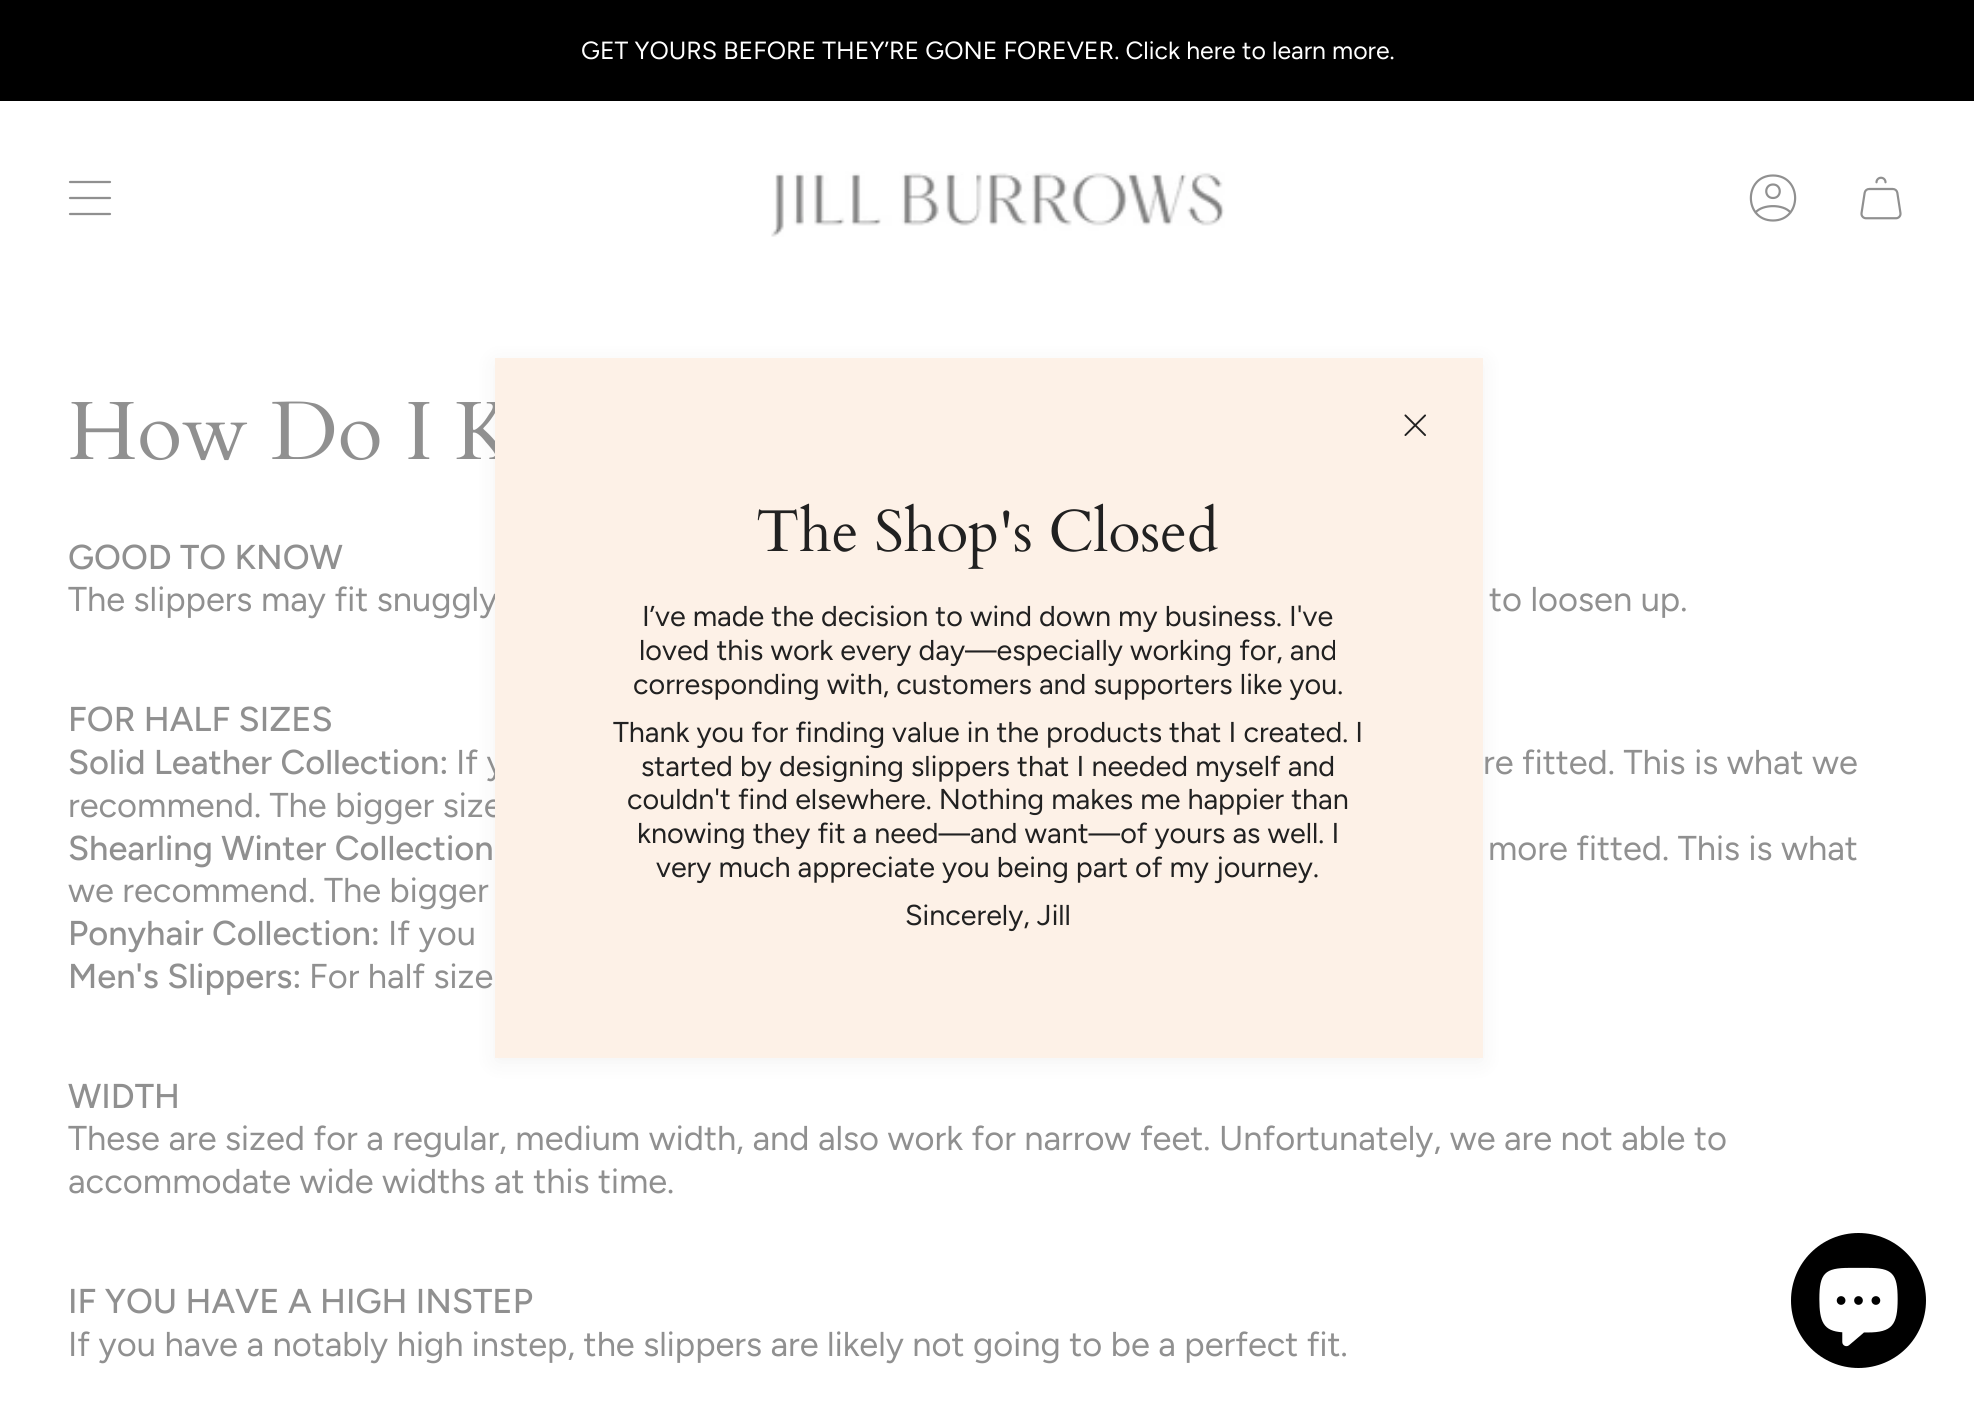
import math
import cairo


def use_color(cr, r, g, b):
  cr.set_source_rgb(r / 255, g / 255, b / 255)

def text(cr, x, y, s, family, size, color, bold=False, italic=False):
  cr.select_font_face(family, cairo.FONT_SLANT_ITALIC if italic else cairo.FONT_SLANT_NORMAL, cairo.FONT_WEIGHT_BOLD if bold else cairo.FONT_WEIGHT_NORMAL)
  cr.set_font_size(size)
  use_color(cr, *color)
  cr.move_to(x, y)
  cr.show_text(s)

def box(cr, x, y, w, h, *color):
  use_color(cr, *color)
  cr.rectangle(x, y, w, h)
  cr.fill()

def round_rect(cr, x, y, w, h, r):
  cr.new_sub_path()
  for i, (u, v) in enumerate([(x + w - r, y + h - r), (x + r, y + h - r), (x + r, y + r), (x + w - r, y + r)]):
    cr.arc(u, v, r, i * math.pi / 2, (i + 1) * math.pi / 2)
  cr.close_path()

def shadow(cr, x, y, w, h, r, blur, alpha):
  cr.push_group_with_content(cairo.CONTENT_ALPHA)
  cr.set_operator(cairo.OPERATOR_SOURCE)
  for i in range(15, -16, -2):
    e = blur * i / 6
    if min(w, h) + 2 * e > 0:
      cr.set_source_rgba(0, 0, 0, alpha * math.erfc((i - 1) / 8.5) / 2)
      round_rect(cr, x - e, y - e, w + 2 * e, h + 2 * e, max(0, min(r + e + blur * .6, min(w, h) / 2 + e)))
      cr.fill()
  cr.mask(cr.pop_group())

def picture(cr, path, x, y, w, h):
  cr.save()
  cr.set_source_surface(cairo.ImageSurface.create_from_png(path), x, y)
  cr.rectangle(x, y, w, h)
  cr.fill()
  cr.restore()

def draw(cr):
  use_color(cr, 255, 255, 255)
  cr.paint()
  box(cr, 0, 0, 1974, 101, 0, 0, 0)
  cr.new_path()
  cr.move_to(70, 182)
  cr.line_to(110, 182)
  cr.move_to(70, 198)
  cr.line_to(110, 198)
  cr.move_to(70, 214)
  cr.line_to(110, 214)
  use_color(cr, 144, 144, 144)
  cr.set_line_width(2.2)
  cr.set_line_cap(cairo.LINE_CAP_ROUND)
  cr.set_line_join(cairo.LINE_JOIN_ROUND)
  cr.stroke()
  picture(cr, "img_01.png", 771, 171, 454, 66)
  cr.new_path()
  cr.move_to(1773, 175.5)
  cr.curve_to(1743.5, 175.5, 1743.5, 220.5, 1773, 220.5)
  cr.curve_to(1802.5, 220.5, 1802.5, 175.5, 1773, 175.5)
  cr.close_path()
  cr.move_to(1755.5, 212.5)
  cr.curve_to(1762.5, 204, 1783.5, 204, 1790.5, 212.5)
  cr.move_to(1773, 198)
  cr.curve_to(1782, 198, 1782, 184.5, 1773, 184.5)
  cr.curve_to(1764, 184.5, 1764, 198, 1773, 198)
  cr.close_path()
  cr.stroke()
  picture(cr, "img_02.png", 1860, 176, 42, 44)
  use_color(cr, 0, 0, 0)
  shadow(cr, 495, 362, 988, 700, 0, 11, 0.05)
  use_color(cr, 0, 0, 0)
  cr.arc(1858.5, 1300.5, 67.5, 0, 2 * math.pi)
  cr.fill()
  picture(cr, "img_04.png", 1819, 1267, 79, 80)
  text(cr, 581, 59, "GET YOURS BEFORE THEY’RE GONE FOREVER. Click here", "Figtree", 24.85, (255, 255, 255))
  text(cr, 1242, 59, "to learn more.", "Figtree", 24.85, (255, 255, 255))
  text(cr, 68, 459, "How Do I K", "Cardo", 82.75, (144, 144, 144))
  text(cr, 68, 569, "GOOD TO KNOW", "Figtree Medium", 34.45, (144, 144, 144))
  text(cr, 68, 611, "The slippers may fit snuggly", "Figtree", 34.45, (144, 144, 144))
  text(cr, 1489, 611, "to loosen up.", "Figtree", 34.45, (144, 144, 144))
  text(cr, 68, 731, "FOR HALF SIZES", "Figtree Medium", 34.45, (144, 144, 144))
  text(cr, 68, 774, "Solid Leather Collection:", "Figtree Medium", 34.45, (144, 144, 144))
  text(cr, 456, 774, "If y", "Figtree", 34.45, (144, 144, 144))
  text(cr, 1483, 774, "re fitted. This is what we", "Figtree", 34.45, (144, 144, 144))
  text(cr, 68, 817, "recommend. The bigger size", "Figtree", 34.45, (144, 144, 144))
  text(cr, 68, 860, "Shearling Winter Collection", "Figtree Medium", 34.45, (144, 144, 144))
  text(cr, 1488, 860, "more fitted. This is what", "Figtree", 34.45, (144, 144, 144))
  text(cr, 68, 902, "we recommend. The bigger", "Figtree", 34.45, (144, 144, 144))
  text(cr, 68, 945, "Ponyhair Collection:", "Figtree Medium", 34.45, (144, 144, 144))
  text(cr, 388, 945, "If you", "Figtree", 34.45, (144, 144, 144))
  text(cr, 68, 988, "Men's Slippers:", "Figtree Medium", 34.45, (144, 144, 144))
  text(cr, 309, 988, "For half size", "Figtree", 34.45, (144, 144, 144))
  text(cr, 68, 1108, "WIDTH", "Figtree Medium", 34.45, (144, 144, 144))
  text(cr, 68, 1150, "These are sized for a regular, medium width, and also work for narrow feet. Unfortunately, we are not able to", "Figtree", 34.45, (144, 144, 144))
  text(cr, 68, 1193, "accommodate wide widths at this time.", "Figtree", 34.45, (144, 144, 144))
  text(cr, 68, 1313, "IF YOU HAVE A HIGH INSTEP", "Figtree Medium", 34.45, (144, 144, 144))
  text(cr, 68, 1356, "If you have a notably high instep, the slippers are likely not going to be a perfect fit.", "Figtree", 34.45, (144, 144, 144))
  box(cr, 495, 358, 988, 700, 253, 241, 231)
  picture(cr, "img_03.png", 1404, 414, 22, 22)
  text(cr, 756, 551, "The Shop's Closed", "Cardo", 59, (33, 33, 33))
  text(cr, 642, 626, "I’ve made the decision to wind down my business. I've", "Figtree", 28.7, (33, 33, 33))
  text(cr, 639, 660, "loved this work every day—especially working for, and", "Figtree", 28.7, (33, 33, 33))
  text(cr, 633, 694, "corresponding with, customers and supporters like you.", "Figtree", 28.7, (33, 33, 33))
  text(cr, 613, 742, "Thank you for finding value in the products that I created. I", "Figtree", 28.7, (33, 33, 33))
  text(cr, 641, 776, "started by designing slippers that I needed myself and", "Figtree", 28.7, (33, 33, 33))
  text(cr, 627, 809, "couldn't find elsewhere. Nothing makes me happier than", "Figtree", 28.7, (33, 33, 33))
  text(cr, 637, 843, "knowing they fit a need—and want—of yours as well. I", "Figtree", 28.7, (33, 33, 33))
  text(cr, 656, 877, "very much appreciate you being part of my journey.", "Figtree", 28.7, (33, 33, 33))
  text(cr, 905, 925, "Sincerely, Jill", "Figtree", 28.7, (33, 33, 33))


surface = cairo.ImageSurface(cairo.FORMAT_RGB24, 1974, 1415)
cr = cairo.Context(surface)
options = cairo.FontOptions()
options.set_hint_metrics(cairo.HINT_METRICS_OFF)
options.set_hint_style(cairo.HINT_STYLE_NONE)
cr.set_font_options(options)
cr.set_miter_limit(4)
draw(cr)
surface.write_to_png("out.png")
